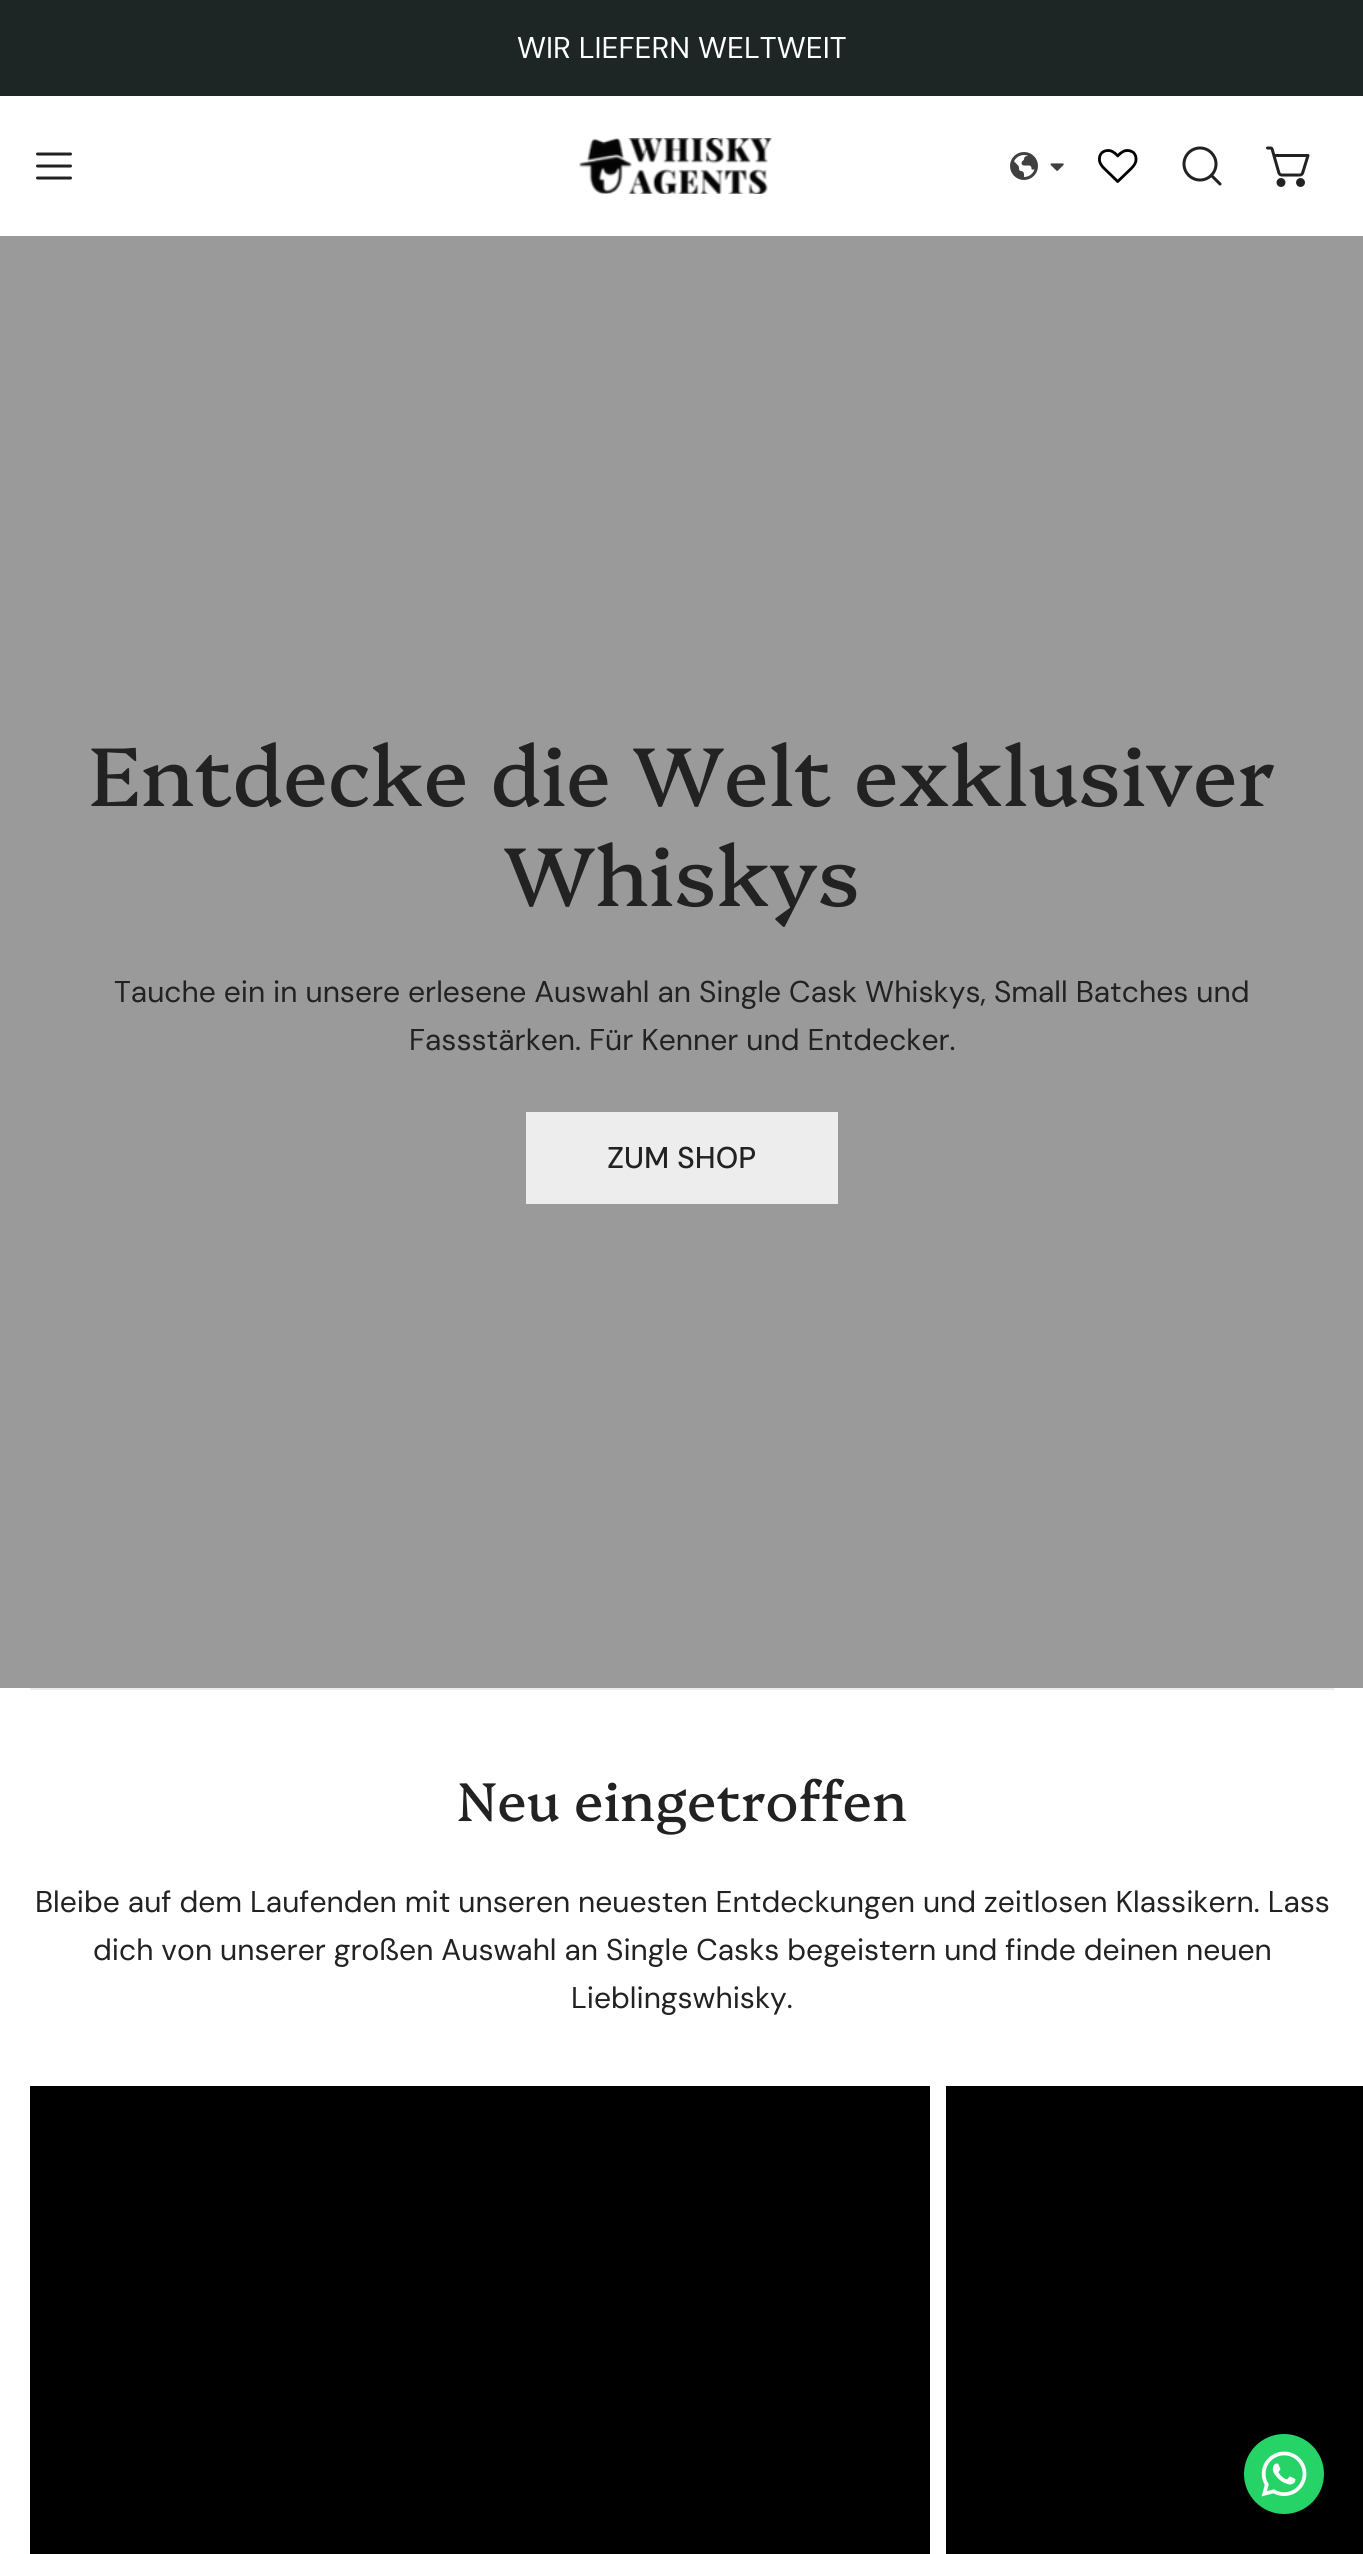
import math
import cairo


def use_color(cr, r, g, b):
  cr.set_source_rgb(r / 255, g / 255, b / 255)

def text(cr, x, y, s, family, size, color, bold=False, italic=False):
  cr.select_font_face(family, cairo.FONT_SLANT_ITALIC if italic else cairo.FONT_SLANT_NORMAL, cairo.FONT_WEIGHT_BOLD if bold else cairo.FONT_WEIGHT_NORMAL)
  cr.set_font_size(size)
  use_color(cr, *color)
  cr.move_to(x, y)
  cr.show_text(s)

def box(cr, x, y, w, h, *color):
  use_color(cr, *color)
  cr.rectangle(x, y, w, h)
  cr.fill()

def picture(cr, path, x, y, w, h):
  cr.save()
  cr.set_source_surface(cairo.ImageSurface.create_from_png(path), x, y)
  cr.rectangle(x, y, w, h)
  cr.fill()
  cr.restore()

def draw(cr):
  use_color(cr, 255, 255, 255)
  cr.paint()
  box(cr, 0, 0, 1363, 96, 29, 38, 37)
  cr.new_path()
  cr.move_to(37.5, 166)
  cr.line_to(70.5, 166)
  cr.move_to(37.5, 154)
  cr.line_to(70.5, 154)
  cr.move_to(37.5, 178)
  cr.line_to(70.5, 178)
  use_color(cr, 34, 34, 34)
  cr.set_line_width(3)
  cr.set_line_cap(cairo.LINE_CAP_ROUND)
  cr.set_line_join(cairo.LINE_JOIN_ROUND)
  cr.stroke()
  picture(cr, "img_01.png", 579, 138, 193, 56)
  picture(cr, "img_02.png", 1010, 152, 28, 28)
  picture(cr, "img_03.png", 1050, 163, 14, 8)
  picture(cr, "img_04.png", 1098, 149, 40, 34)
  cr.arc(1200, 164, 16, 0, 2 * math.pi)
  cr.set_line_cap(cairo.LINE_CAP_BUTT)
  cr.set_line_join(cairo.LINE_JOIN_MITER)
  cr.stroke()
  cr.new_path()
  cr.move_to(1220, 184)
  cr.line_to(1211.5, 175.5)
  cr.set_line_cap(cairo.LINE_CAP_ROUND)
  cr.set_line_join(cairo.LINE_JOIN_ROUND)
  cr.stroke()
  picture(cr, "img_05.png", 1266, 146, 44, 41)
  box(cr, 0, 236, 1363, 1452, 154, 154, 154)
  box(cr, 526, 1112, 312, 92, 237, 237, 237)
  box(cr, 30, 1688, 1304, 2, 237, 237, 237)
  box(cr, 30, 2086, 900, 468, 0, 0, 0)
  box(cr, 946, 2086, 417, 468, 0, 0, 0)
  picture(cr, "img_06.png", 1244, 2434, 80, 80)
  text(cr, 517, 58, "WIR LIEFERN WELTWEIT", "DM Sans", 30, (255, 255, 255))
  text(cr, 89, 806, "Entdecke die Welt exklusiver", "Platypi", 83.25, (34, 34, 34))
  text(cr, 504, 906, "Whiskys", "Platypi", 83.25, (34, 34, 34))
  text(cr, 114, 1002, "Tauche ein in unsere erlesene Auswahl an Single Cask Whiskys, Small Batches und", "DM Sans", 30, (34, 34, 34))
  text(cr, 409, 1050, "Fassstärken. Für Kenner und Entdecker.", "DM Sans", 30, (34, 34, 34))
  text(cr, 607, 1168, "ZUM SHOP", "DM Sans Medium", 30, (34, 34, 34))
  text(cr, 457, 1821, "Neu eingetroffen", "Platypi", 54.5, (34, 34, 34))
  text(cr, 35, 1912, "Bleibe auf dem Laufenden mit unseren neuesten Entdeckungen und zeitlosen Klassikern. Lass", "DM Sans", 30, (34, 34, 34))
  text(cr, 93, 1960, "dich von unserer großen Auswahl an Single Casks begeistern und finde deinen neuen", "DM Sans", 30, (34, 34, 34))
  text(cr, 571, 2008, "Lieblingswhisky.", "DM Sans", 30, (34, 34, 34))


surface = cairo.ImageSurface(cairo.FORMAT_RGB24, 1363, 2554)
cr = cairo.Context(surface)
options = cairo.FontOptions()
options.set_hint_metrics(cairo.HINT_METRICS_OFF)
options.set_hint_style(cairo.HINT_STYLE_NONE)
cr.set_font_options(options)
cr.set_miter_limit(4)
draw(cr)
surface.write_to_png("out.png")
